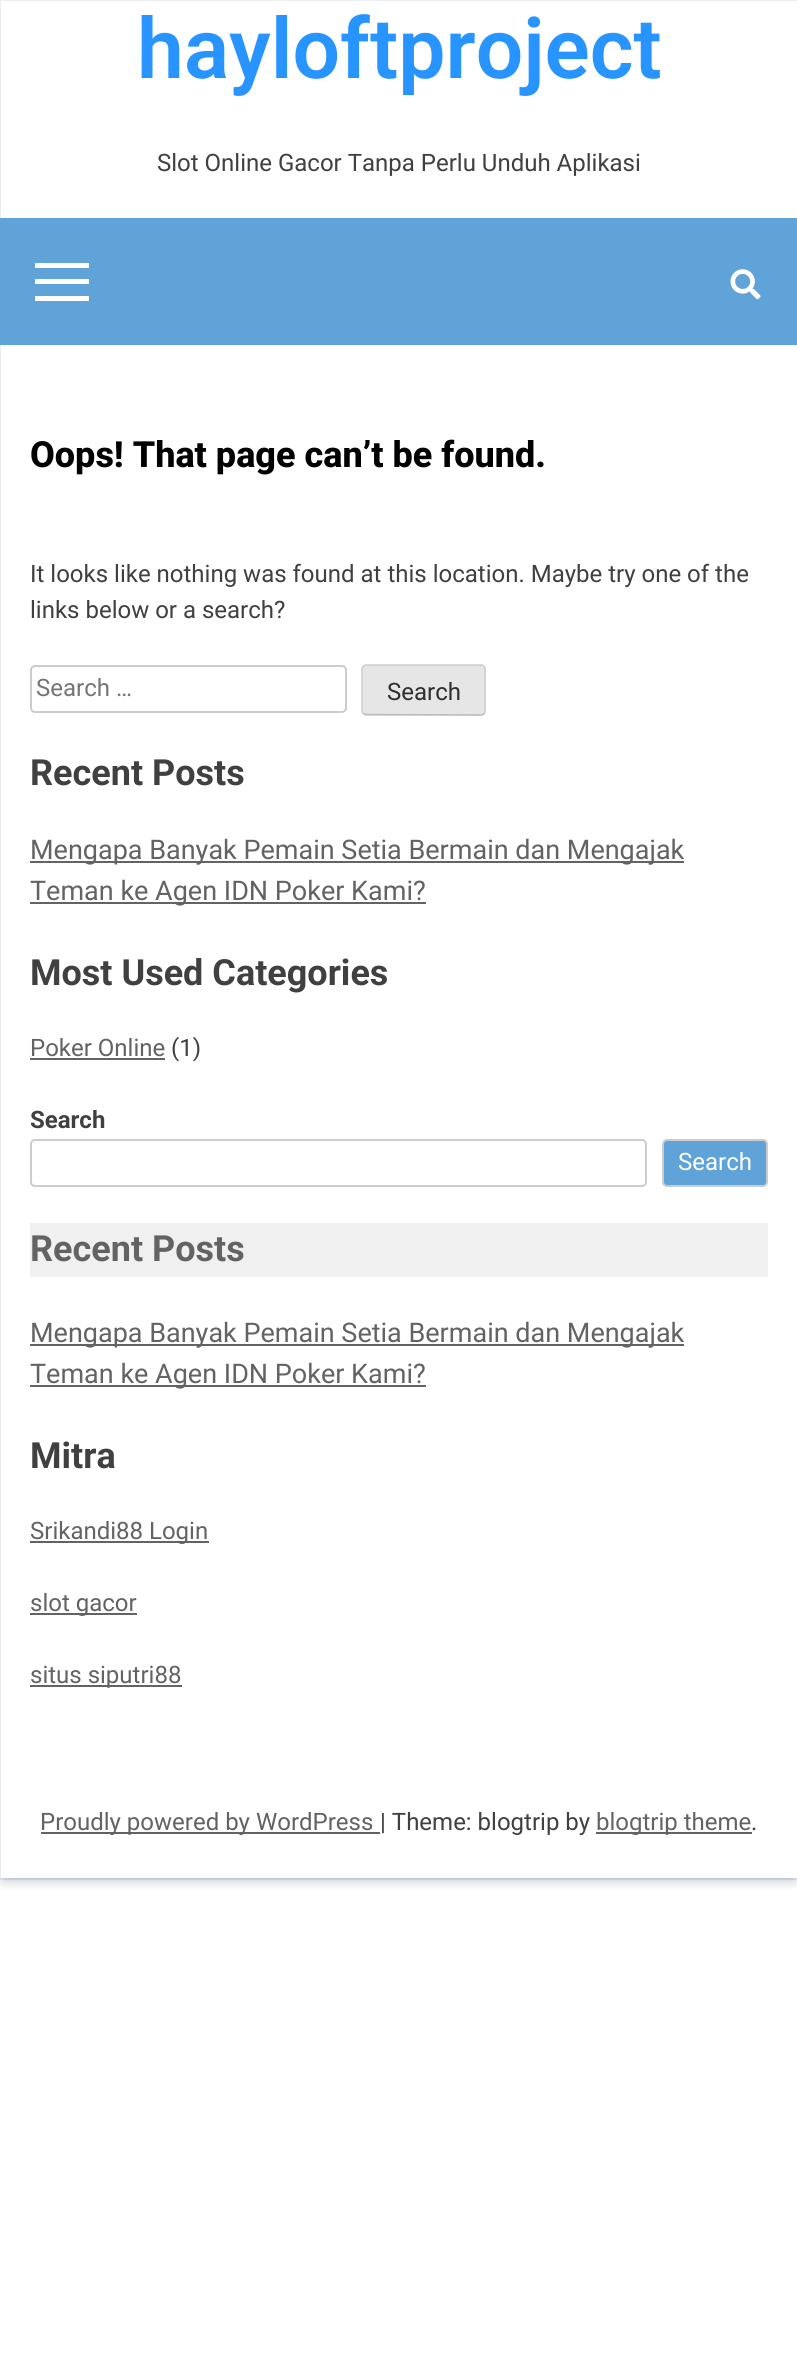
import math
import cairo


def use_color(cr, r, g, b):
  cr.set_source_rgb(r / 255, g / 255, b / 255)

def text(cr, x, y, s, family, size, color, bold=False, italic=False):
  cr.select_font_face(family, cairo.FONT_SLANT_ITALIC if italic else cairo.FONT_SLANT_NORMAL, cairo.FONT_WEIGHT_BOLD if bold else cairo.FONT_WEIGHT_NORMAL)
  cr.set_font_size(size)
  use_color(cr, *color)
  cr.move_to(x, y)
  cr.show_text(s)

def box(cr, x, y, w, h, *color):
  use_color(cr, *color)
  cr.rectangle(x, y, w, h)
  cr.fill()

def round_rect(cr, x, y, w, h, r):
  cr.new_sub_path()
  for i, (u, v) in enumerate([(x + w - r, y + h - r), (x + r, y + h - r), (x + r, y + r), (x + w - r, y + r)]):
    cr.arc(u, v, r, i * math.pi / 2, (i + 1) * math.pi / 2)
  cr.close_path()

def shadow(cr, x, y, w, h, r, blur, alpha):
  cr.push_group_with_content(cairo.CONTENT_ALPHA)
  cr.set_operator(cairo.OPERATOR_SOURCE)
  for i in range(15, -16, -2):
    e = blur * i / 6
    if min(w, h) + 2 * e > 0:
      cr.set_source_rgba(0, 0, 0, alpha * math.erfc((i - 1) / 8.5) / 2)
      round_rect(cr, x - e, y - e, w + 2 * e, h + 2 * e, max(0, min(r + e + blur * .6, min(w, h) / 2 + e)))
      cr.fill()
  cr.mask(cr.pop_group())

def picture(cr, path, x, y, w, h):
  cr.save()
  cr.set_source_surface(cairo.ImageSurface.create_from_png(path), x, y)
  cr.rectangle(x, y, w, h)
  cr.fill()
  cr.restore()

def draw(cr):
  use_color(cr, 255, 255, 255)
  cr.paint()
  cr.rectangle(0, 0, 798, 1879)
  use_color(cr, 235, 237, 240)
  cr.stroke()
  cr.save()
  cr.rectangle(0, 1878, 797, 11)
  cr.clip()
  use_color(cr, 9, 30, 66)
  shadow(cr, 3, 9, 792, 1872, 0, 6, 0.25)
  cr.restore()
  box(cr, 0, 218, 797, 127, 96, 163, 217)
  box(cr, 35, 263, 54, 5, 255, 255, 255)
  box(cr, 35, 279, 54, 5, 255, 255, 255)
  box(cr, 35, 296, 54, 5, 255, 255, 255)
  picture(cr, "img_01.png", 730, 269, 31, 31)
  round_rect(cr, 31, 666, 315, 46, 4)
  use_color(cr, 204, 204, 204)
  cr.stroke()
  use_color(cr, 230, 230, 230)
  round_rect(cr, 362, 665, 124, 51, 5)
  cr.fill()
  cr.new_path()
  cr.move_to(484, 713.5)
  cr.line_to(481.5, 715)
  cr.line_to(365.5, 714.5)
  cr.line_to(363.5, 713.5)
  use_color(cr, 187, 187, 187)
  cr.set_line_width(1.5)
  cr.stroke()
  cr.new_path()
  cr.move_to(363.5, 713.5)
  cr.curve_to(362.5, 713, 362, 712, 362, 711)
  cr.line_to(362, 669)
  cr.curve_to(362, 668, 362.5, 667, 363.5, 666.5)
  cr.curve_to(364, 665.5, 365, 665, 366, 665)
  cr.line_to(481.5, 665)
  cr.curve_to(482.5, 665, 483.5, 665.5, 484, 666.5)
  cr.curve_to(485, 667, 485, 668, 485, 669)
  cr.line_to(485, 711)
  cr.curve_to(485, 712, 485, 713, 484, 713.5)
  use_color(cr, 204, 204, 204)
  cr.stroke()
  box(cr, 30, 861, 654, 2, 99, 99, 99)
  box(cr, 30, 902, 396, 2, 99, 99, 99)
  box(cr, 30, 1058, 135, 2, 99, 99, 99)
  round_rect(cr, 31, 1140, 615, 46, 4)
  use_color(cr, 204, 204, 204)
  cr.set_line_width(2)
  cr.stroke()
  use_color(cr, 96, 163, 217)
  round_rect(cr, 663, 1140, 104, 46, 4)
  cr.fill_preserve()
  use_color(cr, 204, 204, 204)
  cr.stroke()
  box(cr, 30, 1223, 738, 54, 240, 240, 240)
  box(cr, 30, 1344, 654, 2, 99, 99, 99)
  box(cr, 30, 1385, 396, 2, 99, 99, 99)
  box(cr, 30, 1541, 179, 2, 99, 99, 99)
  box(cr, 30, 1613, 107, 2, 99, 99, 99)
  box(cr, 30, 1685, 152, 2, 99, 99, 99)
  box(cr, 41, 1832, 339, 2, 99, 99, 99)
  box(cr, 596, 1832, 156, 2, 99, 99, 99)
  text(cr, 137, 78, "hayloftproject", "Roboto SemiBold", 84, (40, 148, 255))
  text(cr, 157, 171, "Slot Online Gacor Tanpa Perlu Unduh Aplikasi", "Roboto", 24, (64, 64, 64))
  text(cr, 30, 467, "Oops! That page can’t be found.", "Roboto ExtraBold", 36, (0, 0, 0))
  text(cr, 30, 582, "It looks like nothing was found at this location. Maybe try one of the", "Roboto", 24, (64, 64, 64))
  text(cr, 30, 618, "links below or a search?", "Roboto", 24, (64, 64, 64))
  text(cr, 36, 696, "Search …", "Roboto", 24, (117, 117, 117))
  text(cr, 387, 700, "Search", "Roboto", 24, (46, 46, 46))
  text(cr, 30, 785, "Recent Posts", "Roboto", 36, (64, 64, 64), bold=True)
  text(cr, 30, 859, "Mengapa Banyak Pemain Setia Bermain dan Mengajak", "Roboto", 27, (99, 99, 99))
  text(cr, 30, 900, "Teman ke Agen IDN Poker Kami?", "Roboto", 27, (99, 99, 99))
  text(cr, 30, 985, "Most Used Categories", "Roboto", 36, (64, 64, 64), bold=True)
  text(cr, 30, 1056, "Poker Online", "Roboto", 24, (99, 99, 99))
  text(cr, 171, 1056, "(1)", "Roboto", 24, (64, 64, 64))
  text(cr, 30, 1128, "Search", "Roboto", 24, (64, 64, 64), bold=True)
  text(cr, 678, 1170, "Search", "Roboto", 24, (255, 255, 255))
  text(cr, 30, 1261, "Recent Posts", "Roboto", 36, (99, 99, 99), bold=True)
  text(cr, 30, 1342, "Mengapa Banyak Pemain Setia Bermain dan Mengajak", "Roboto", 27, (99, 99, 99))
  text(cr, 30, 1383, "Teman ke Agen IDN Poker Kami?", "Roboto", 27, (99, 99, 99))
  text(cr, 30, 1468, "Mitra", "Roboto", 36, (64, 64, 64), bold=True)
  text(cr, 30, 1539, "Srikandi88 Login", "Roboto", 24, (99, 99, 99))
  text(cr, 30, 1611, "slot gacor", "Roboto", 24, (99, 99, 99))
  text(cr, 30, 1683, "situs siputri88", "Roboto", 24, (99, 99, 99))
  text(cr, 40, 1830, "Proudly powered by WordPress", "Roboto", 24, (99, 99, 99))
  text(cr, 380, 1830, "| Theme: blogtrip by", "Roboto", 24, (64, 64, 64))
  text(cr, 596, 1830, "blogtrip theme", "Roboto", 24, (99, 99, 99))
  text(cr, 751, 1830, ".", "Roboto", 24, (64, 64, 64))


surface = cairo.ImageSurface(cairo.FORMAT_RGB24, 797, 2358)
cr = cairo.Context(surface)
options = cairo.FontOptions()
options.set_hint_metrics(cairo.HINT_METRICS_OFF)
options.set_hint_style(cairo.HINT_STYLE_NONE)
cr.set_font_options(options)
cr.set_miter_limit(4)
draw(cr)
surface.write_to_png("out.png")
